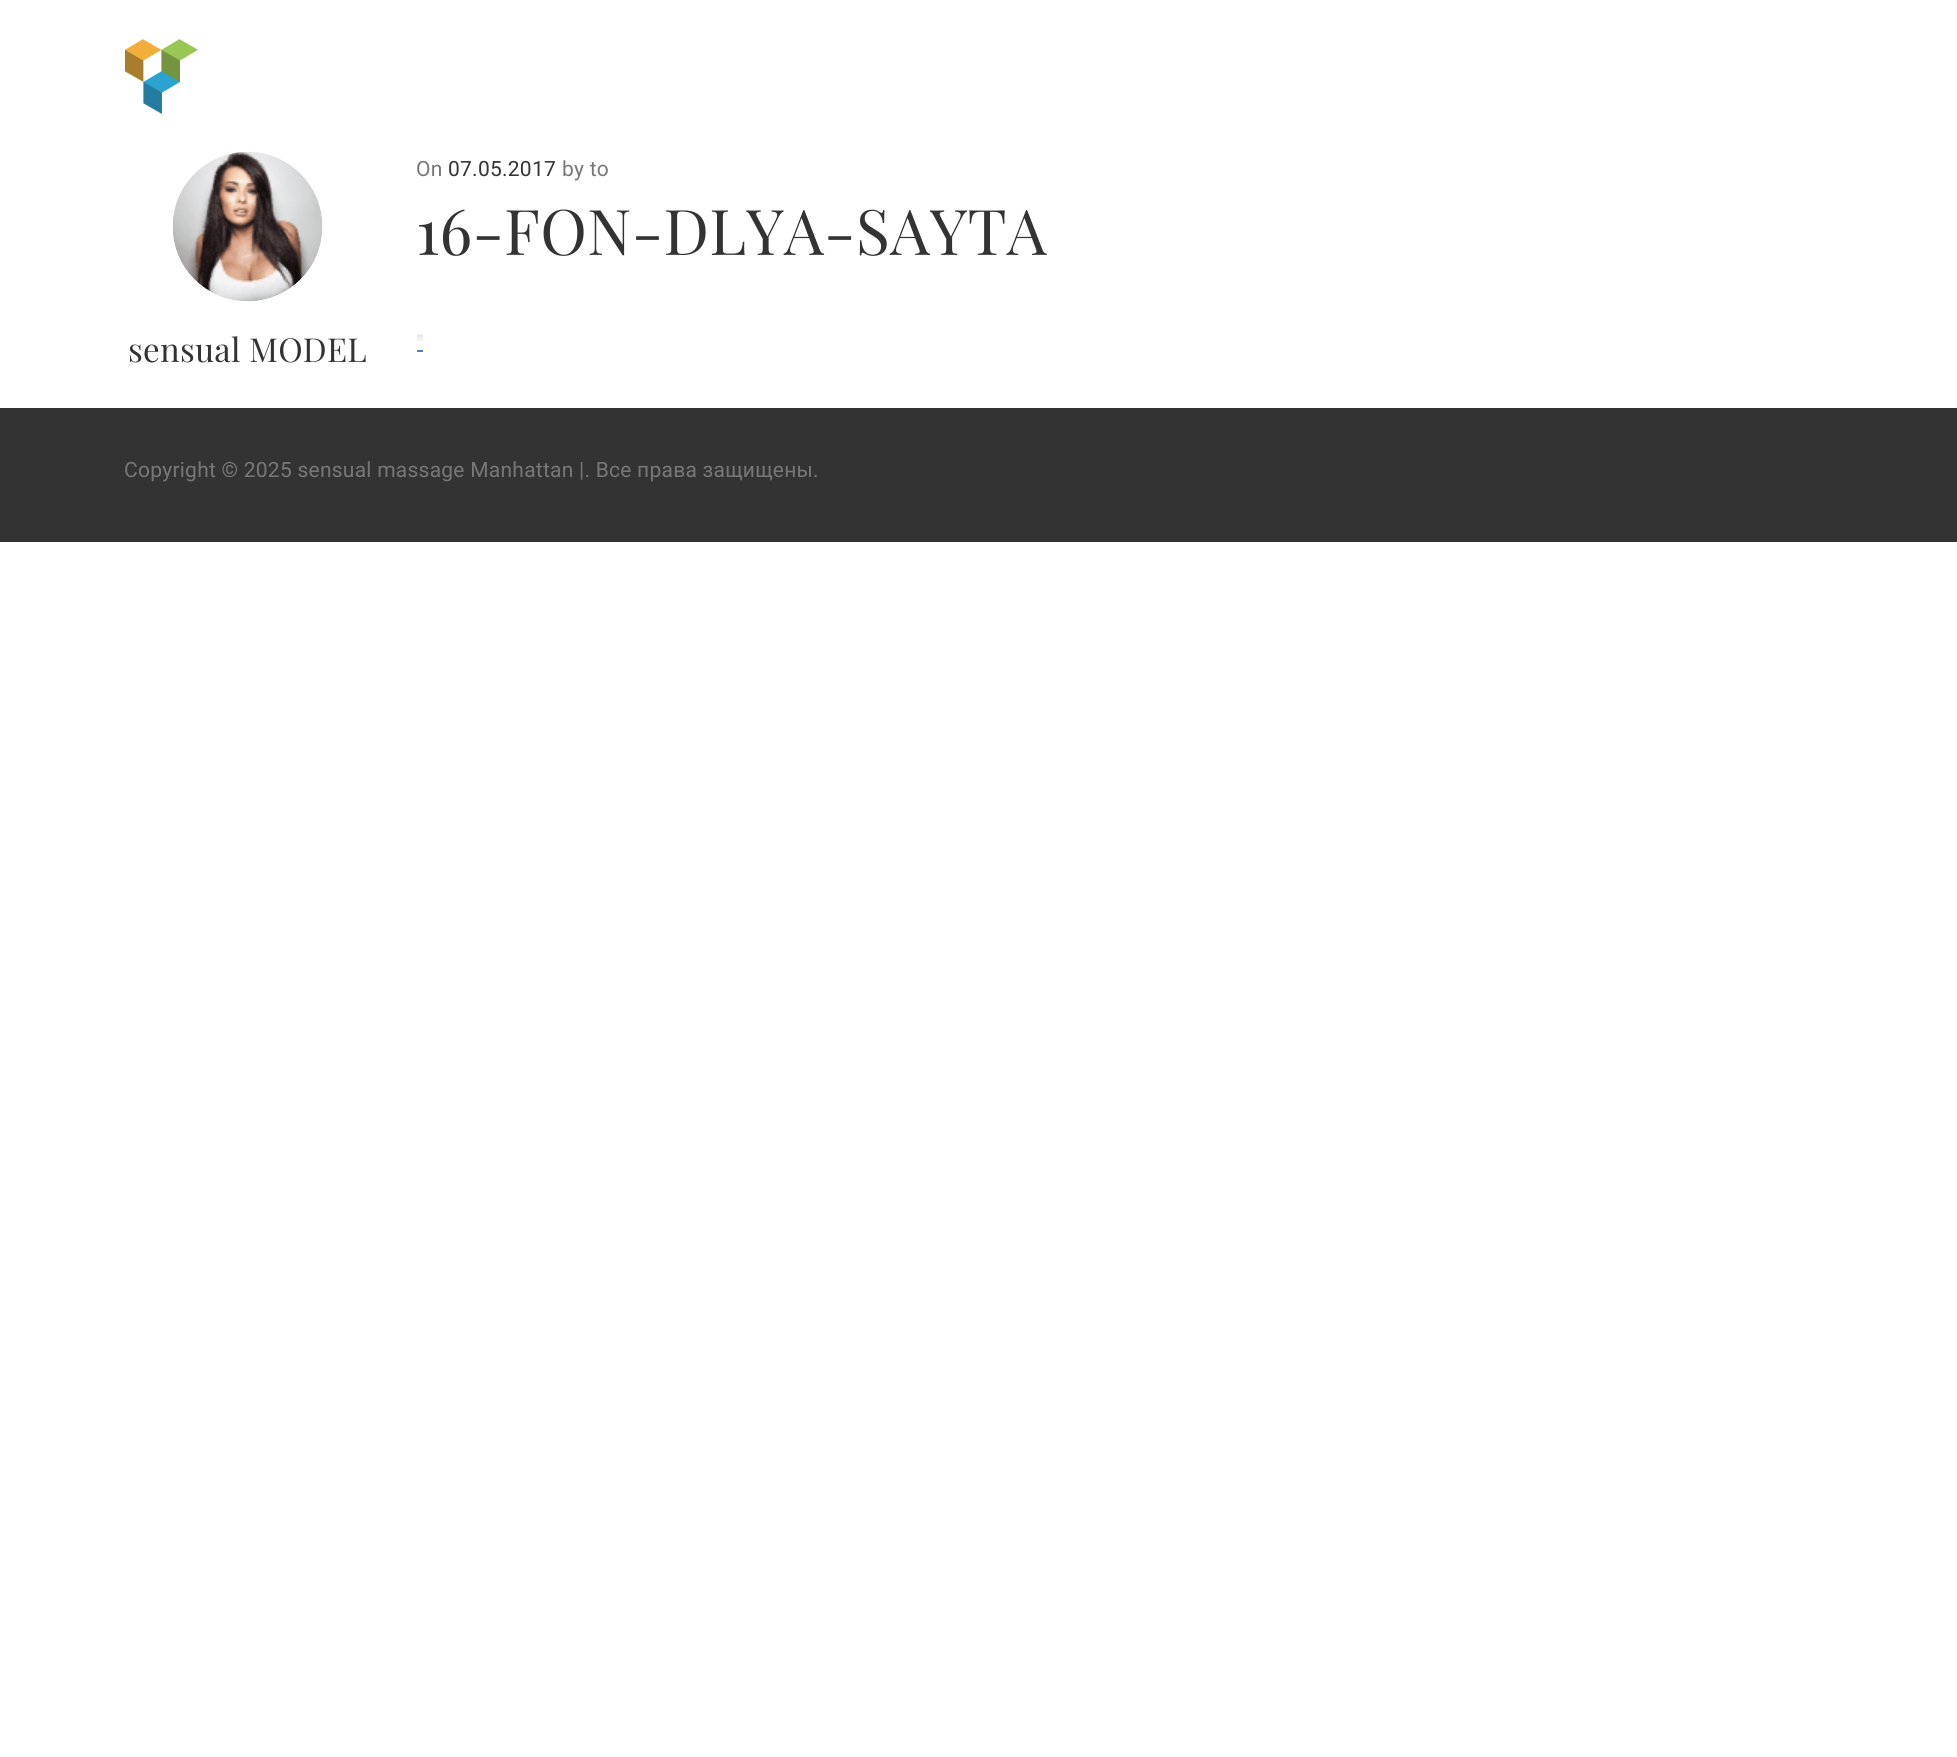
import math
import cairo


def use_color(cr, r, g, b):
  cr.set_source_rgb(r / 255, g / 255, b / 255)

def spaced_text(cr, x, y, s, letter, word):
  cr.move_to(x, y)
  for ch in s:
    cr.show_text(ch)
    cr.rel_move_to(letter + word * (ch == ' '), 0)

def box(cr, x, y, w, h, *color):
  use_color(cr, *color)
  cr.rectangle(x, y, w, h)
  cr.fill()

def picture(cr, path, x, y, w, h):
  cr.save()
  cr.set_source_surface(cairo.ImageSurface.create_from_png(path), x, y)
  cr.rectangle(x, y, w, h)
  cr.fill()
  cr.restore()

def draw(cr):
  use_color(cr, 255, 255, 255)
  cr.paint()
  picture(cr, "img_01.png", 125, 39, 73, 75)
  picture(cr, "img_02.png", 417, 334, 6, 7)
  box(cr, 417, 350, 6, 2, 85, 124, 191)
  picture(cr, "img_03.png", 172, 152, 151, 150)
  box(cr, 0, 408, 1957, 134, 51, 51, 51)
  cr.select_font_face("Roboto")
  cr.set_font_size(21)
  use_color(cr, 119, 119, 119)
  spaced_text(cr, 416, 176, "On", 0.25, 0)
  use_color(cr, 51, 51, 51)
  spaced_text(cr, 448, 176, "07.05.2017", 0.25, 0)
  use_color(cr, 119, 119, 119)
  spaced_text(cr, 562, 176, "by to", 0.25, 0)
  cr.select_font_face("Playfair Display")
  cr.set_font_size(63)
  use_color(cr, 51, 51, 51)
  spaced_text(cr, 416, 255, "16-FON-DLYA-SAYTA", 0.25, 0)
  cr.set_font_size(33)
  spaced_text(cr, 128, 362, "sensual MODEL", 0.25, 0)
  cr.select_font_face("Roboto")
  cr.set_font_size(21)
  use_color(cr, 119, 119, 119)
  spaced_text(cr, 124, 477, "Copyright © 2025 sensual massage Manhattan |. Все права защищены.", 0.25, 0)


surface = cairo.ImageSurface(cairo.FORMAT_RGB24, 1957, 1757)
cr = cairo.Context(surface)
options = cairo.FontOptions()
options.set_hint_metrics(cairo.HINT_METRICS_OFF)
options.set_hint_style(cairo.HINT_STYLE_NONE)
cr.set_font_options(options)
cr.set_miter_limit(4)
draw(cr)
surface.write_to_png("out.png")
